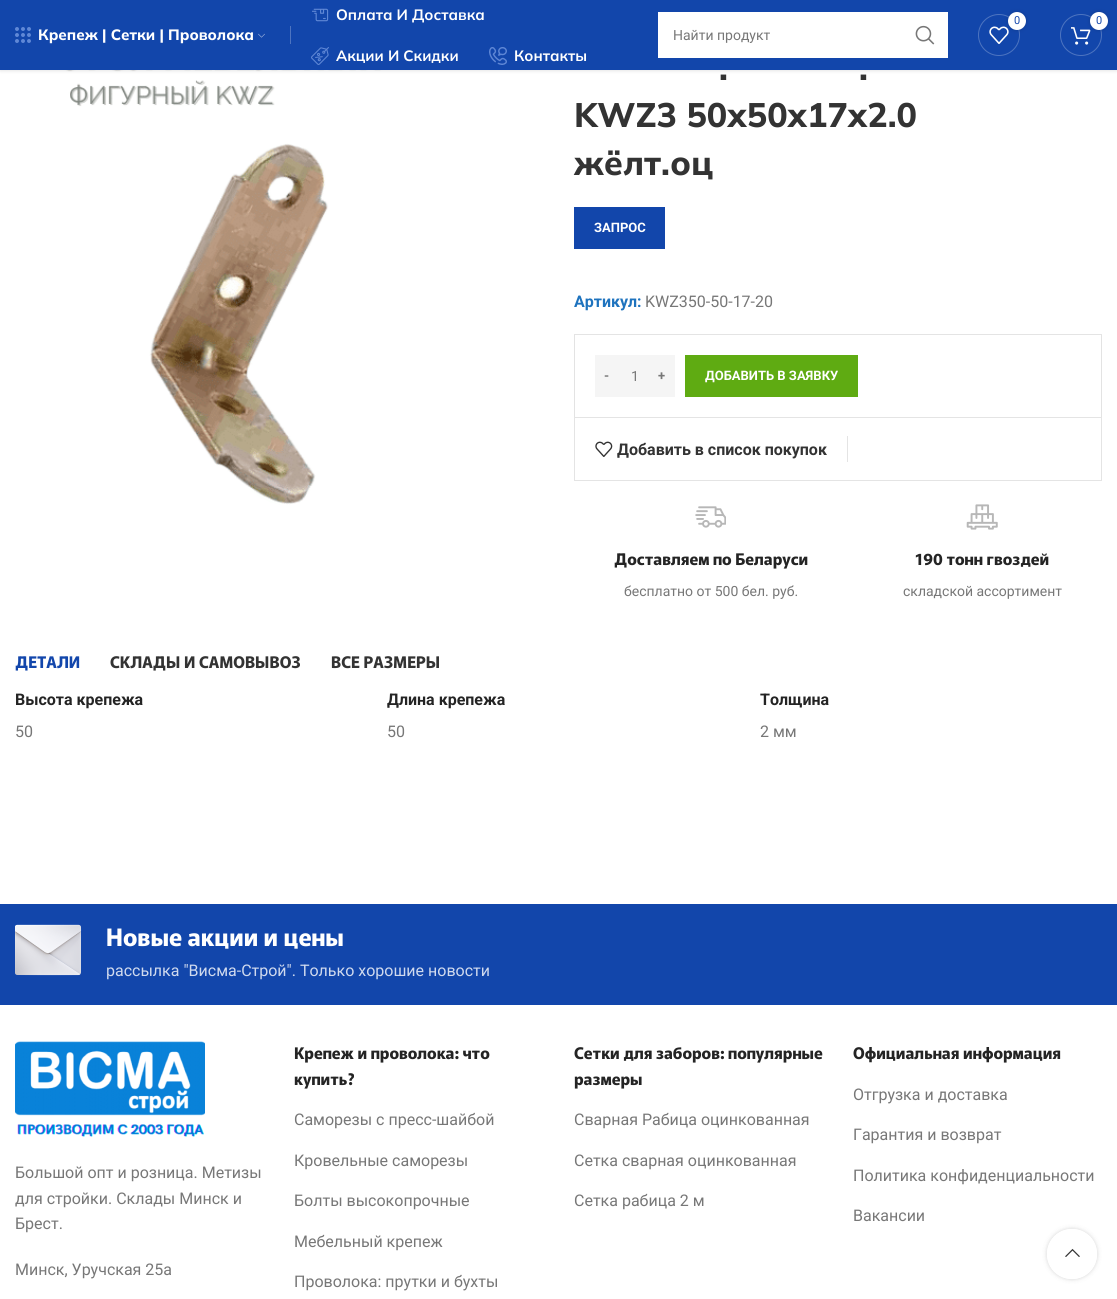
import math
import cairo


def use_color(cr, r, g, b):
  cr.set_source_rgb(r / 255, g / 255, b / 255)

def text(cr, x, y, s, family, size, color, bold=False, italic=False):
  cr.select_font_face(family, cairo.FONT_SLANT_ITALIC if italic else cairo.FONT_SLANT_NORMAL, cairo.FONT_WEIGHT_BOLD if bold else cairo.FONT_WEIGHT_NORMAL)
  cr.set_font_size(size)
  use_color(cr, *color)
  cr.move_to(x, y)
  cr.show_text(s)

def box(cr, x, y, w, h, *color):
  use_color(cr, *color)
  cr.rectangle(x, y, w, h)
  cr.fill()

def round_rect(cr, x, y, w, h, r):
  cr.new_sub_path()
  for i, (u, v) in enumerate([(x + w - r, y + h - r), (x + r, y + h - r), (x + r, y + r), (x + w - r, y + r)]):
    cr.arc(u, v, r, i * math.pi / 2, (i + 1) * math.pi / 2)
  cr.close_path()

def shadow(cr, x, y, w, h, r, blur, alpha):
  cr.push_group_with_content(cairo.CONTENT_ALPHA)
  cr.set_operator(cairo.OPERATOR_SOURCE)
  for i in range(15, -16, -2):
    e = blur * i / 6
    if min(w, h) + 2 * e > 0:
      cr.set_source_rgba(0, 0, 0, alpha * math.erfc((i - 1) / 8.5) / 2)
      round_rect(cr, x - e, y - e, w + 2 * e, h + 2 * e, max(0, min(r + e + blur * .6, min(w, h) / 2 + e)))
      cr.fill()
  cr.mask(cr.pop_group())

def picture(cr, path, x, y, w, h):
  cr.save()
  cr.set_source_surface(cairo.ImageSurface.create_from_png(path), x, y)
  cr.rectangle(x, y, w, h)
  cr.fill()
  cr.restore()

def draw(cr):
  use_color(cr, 255, 255, 255)
  cr.paint()
  picture(cr, "img_09.png", 62, 70, 319, 435)
  use_color(cr, 0, 0, 0)
  shadow(cr, 0, 1, 1117, 70, 0, 1.5, 0.1)
  box(cr, 0, 0, 1117, 70, 18, 70, 171)
  picture(cr, "img_01.png", 15, 27, 16, 16)
  picture(cr, "img_02.png", 258, 33, 7, 5)
  box(cr, 290, 26, 1, 18, 77, 116, 192)
  picture(cr, "img_03.png", 312, 8, 17, 14)
  picture(cr, "img_04.png", 311, 47, 18, 18)
  picture(cr, "img_05.png", 489, 47, 18, 18)
  cr.arc(999, 35, 20.5, 0, 2 * math.pi)
  cr.set_line_width(1)
  cr.stroke()
  picture(cr, "img_06.png", 989, 26, 20, 18)
  use_color(cr, 0, 0, 0)
  shadow(cr, 1008, 12, 18, 18, 9, 2, 0.17)
  use_color(cr, 255, 255, 255)
  cr.arc(1017, 21, 9, 0, 2 * math.pi)
  cr.fill()
  cr.arc(1081, 35, 20.5, 0, 2 * math.pi)
  use_color(cr, 77, 116, 192)
  cr.stroke()
  picture(cr, "img_07.png", 1071, 27, 20, 18)
  use_color(cr, 0, 0, 0)
  shadow(cr, 1090, 12, 18, 18, 9, 2, 0.17)
  use_color(cr, 255, 255, 255)
  cr.arc(1099, 21, 9, 0, 2 * math.pi)
  cr.fill()
  box(cr, 658, 12, 290, 46, 255, 255, 255)
  picture(cr, "img_08.png", 915, 25, 20, 20)
  box(cr, 574, 207, 91, 42, 18, 70, 171)
  use_color(cr, 228, 228, 228)
  cr.new_path()
  cr.move_to(574, 334)
  cr.line_to(1102, 334)
  cr.line_to(1101, 335)
  cr.line_to(575, 335)
  cr.close_path()
  cr.fill()
  cr.set_source_rgba(0.467, 0.467, 0.467, 0.2)
  cr.new_path()
  cr.move_to(1102, 334)
  cr.line_to(1102, 417)
  cr.line_to(1101, 417)
  cr.line_to(1101, 335)
  cr.close_path()
  cr.fill()
  cr.new_path()
  cr.move_to(574, 417)
  cr.line_to(574, 334)
  cr.line_to(575, 335)
  cr.line_to(575, 417)
  cr.close_path()
  cr.fill()
  box(cr, 595, 355, 80, 42, 245, 245, 245)
  box(cr, 685, 355, 173, 42, 95, 171, 18)
  cr.rectangle(574.5, 417.5, 527, 63)
  use_color(cr, 228, 228, 228)
  cr.stroke()
  box(cr, 847, 436, 1, 26, 228, 228, 228)
  picture(cr, "img_10.png", 595, 441, 18, 16)
  picture(cr, "img_11.png", 695, 506, 31, 22)
  picture(cr, "img_12.png", 966, 504, 32, 26)
  box(cr, 0, 904, 1117, 101, 18, 70, 171)
  picture(cr, "img_13.png", 15, 924, 67, 52)
  picture(cr, "img_14.png", 15, 1041, 190, 96)
  cr.save()
  cr.set_fill_rule(cairo.FILL_RULE_EVEN_ODD)
  cr.new_path()
  cr.move_to(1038, 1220)
  cr.line_to(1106, 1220)
  cr.line_to(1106, 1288)
  cr.line_to(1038, 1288)
  cr.close_path()
  cr.move_to(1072, 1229)
  cr.curve_to(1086, 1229, 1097, 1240, 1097, 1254)
  cr.curve_to(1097, 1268, 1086, 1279, 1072, 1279)
  cr.curve_to(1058, 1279, 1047, 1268, 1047, 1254)
  cr.curve_to(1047, 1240, 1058, 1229, 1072, 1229)
  cr.close_path()
  cr.clip()
  use_color(cr, 0, 0, 0)
  shadow(cr, 1047, 1229, 50, 50, 25, 2.5, 0.17)
  cr.restore()
  cr.set_source_rgba(1, 1, 1, 0.9)
  cr.arc(1072, 1254, 25, 0, 2 * math.pi)
  cr.fill()
  picture(cr, "img_15.png", 1065, 1248, 15, 9)
  text(cr, 38, 40, "Крепеж | Сетки | Проволока", "Mulish ExtraBold", 15, (255, 255, 255))
  text(cr, 336, 20, "Оплата И Доставка", "Mulish", 15, (255, 255, 255), bold=True)
  text(cr, 336, 61, "Акции И Скидки", "Mulish", 15, (255, 255, 255), bold=True)
  text(cr, 514, 61, "Контакты", "Mulish", 15, (255, 255, 255), bold=True)
  text(cr, 1014, 24, "0", "Roboto", 11, (18, 70, 171))
  text(cr, 1096, 24, "0", "Roboto", 11, (18, 70, 171))
  text(cr, 673, 40, "Найти продукт", "Roboto", 14, (119, 119, 119))
  text(cr, 719, 80, ".", "Mulish ExtraBold", 34, (51, 51, 51))
  text(cr, 859, 80, ".", "Mulish ExtraBold", 34, (51, 51, 51))
  text(cr, 574, 127, "KWZ3 50х50х17х2.0", "Mulish ExtraBold", 34, (51, 51, 51))
  text(cr, 574, 175, "жёлт.оц", "Mulish ExtraBold", 34, (51, 51, 51))
  text(cr, 594, 232, "ЗАПРОС", "Roboto", 13, (255, 255, 255), bold=True)
  text(cr, 574, 307, "Артикул:", "Roboto", 16, (30, 115, 190), bold=True)
  text(cr, 645, 307, "KWZ350-50-17-20", "Roboto", 16, (119, 119, 119))
  text(cr, 604, 380, "-", "Roboto", 13, (119, 119, 119), bold=True)
  text(cr, 631, 381, "1", "Roboto", 14, (119, 119, 119))
  text(cr, 658, 380, "+", "Roboto", 13, (119, 119, 119), bold=True)
  text(cr, 705, 380, "ДОБАВИТЬ В ЗАЯВКУ", "Roboto", 13, (255, 255, 255), bold=True)
  text(cr, 617, 455, "Добавить в список покупок", "Roboto", 16, (51, 51, 51), bold=True)
  text(cr, 614, 565, "Доставляем по Беларуси", "Murecho", 16, (36, 36, 36), bold=True)
  text(cr, 624, 596, "бесплатно от 500 бел. руб.", "Roboto", 14, (119, 119, 119))
  text(cr, 915, 565, "190 тонн гвоздей", "Murecho", 16, (36, 36, 36), bold=True)
  text(cr, 903, 596, "складской ассортимент", "Roboto", 14, (119, 119, 119))
  text(cr, 15, 668, "ДЕТАЛИ", "Murecho", 16, (18, 70, 171), bold=True)
  text(cr, 110, 668, "СКЛАДЫ И САМОВЫВОЗ", "Murecho", 16, (51, 51, 51), bold=True)
  text(cr, 331, 668, "ВСЕ РАЗМЕРЫ", "Murecho", 16, (51, 51, 51), bold=True)
  text(cr, 15, 705, "Высота крепежа", "Roboto", 16, (36, 36, 36), bold=True)
  text(cr, 15, 737, "50", "Roboto", 16, (119, 119, 119))
  text(cr, 387, 705, "Длина крепежа", "Roboto", 16, (36, 36, 36), bold=True)
  text(cr, 387, 737, "50", "Roboto", 16, (119, 119, 119))
  text(cr, 760, 705, "Толщина", "Roboto", 16, (36, 36, 36), bold=True)
  text(cr, 760, 737, "2 мм", "Roboto", 16, (119, 119, 119))
  text(cr, 106, 946, "Новые акции и цены", "Murecho", 24, (255, 255, 255), bold=True)
  text(cr, 106, 976, "рассылка \"Висма-Строй\". Только хорошие новости", "Roboto", 16, (208, 218, 238))
  text(cr, 15, 1178, "Большой опт и розница. Метизы", "Roboto", 16, (119, 119, 119))
  text(cr, 15, 1204, "для стройки. Склады Минск и", "Roboto", 16, (119, 119, 119))
  text(cr, 15, 1229, "Брест.", "Roboto", 16, (119, 119, 119))
  text(cr, 15, 1275, "Минск, Уручская 25а", "Roboto", 16, (119, 119, 119))
  text(cr, 294, 1059, "Крепеж и проволока: что", "Murecho", 16, (36, 36, 36), bold=True)
  text(cr, 294, 1085, "купить?", "Murecho", 16, (36, 36, 36), bold=True)
  text(cr, 294, 1125, "Саморезы с пресс-шайбой", "Roboto", 16, (119, 119, 119))
  text(cr, 294, 1166, "Кровельные саморезы", "Roboto", 16, (119, 119, 119))
  text(cr, 294, 1206, "Болты высокопрочные", "Roboto", 16, (119, 119, 119))
  text(cr, 294, 1247, "Мебельный крепеж", "Roboto", 16, (119, 119, 119))
  text(cr, 294, 1287, "Проволока: прутки и бухты", "Roboto", 16, (119, 119, 119))
  text(cr, 574, 1059, "Сетки для заборов: популярные", "Murecho", 16, (36, 36, 36), bold=True)
  text(cr, 574, 1085, "размеры", "Murecho", 16, (36, 36, 36), bold=True)
  text(cr, 574, 1125, "Сварная Рабица оцинкованная", "Roboto", 16, (119, 119, 119))
  text(cr, 574, 1166, "Сетка сварная оцинкованная", "Roboto", 16, (119, 119, 119))
  text(cr, 574, 1206, "Сетка рабица 2 м", "Roboto", 16, (119, 119, 119))
  text(cr, 853, 1059, "Официальная информация", "Murecho", 16, (36, 36, 36), bold=True)
  text(cr, 853, 1100, "Отгрузка и доставка", "Roboto", 16, (119, 119, 119))
  text(cr, 853, 1140, "Гарантия и возврат", "Roboto", 16, (119, 119, 119))
  text(cr, 853, 1181, "Политика конфиденциальности", "Roboto", 16, (119, 119, 119))
  text(cr, 853, 1221, "Вакансии", "Roboto", 16, (119, 119, 119))


surface = cairo.ImageSurface(cairo.FORMAT_RGB24, 1117, 1299)
cr = cairo.Context(surface)
options = cairo.FontOptions()
options.set_hint_metrics(cairo.HINT_METRICS_OFF)
options.set_hint_style(cairo.HINT_STYLE_NONE)
cr.set_font_options(options)
cr.set_miter_limit(4)
draw(cr)
surface.write_to_png("out.png")
